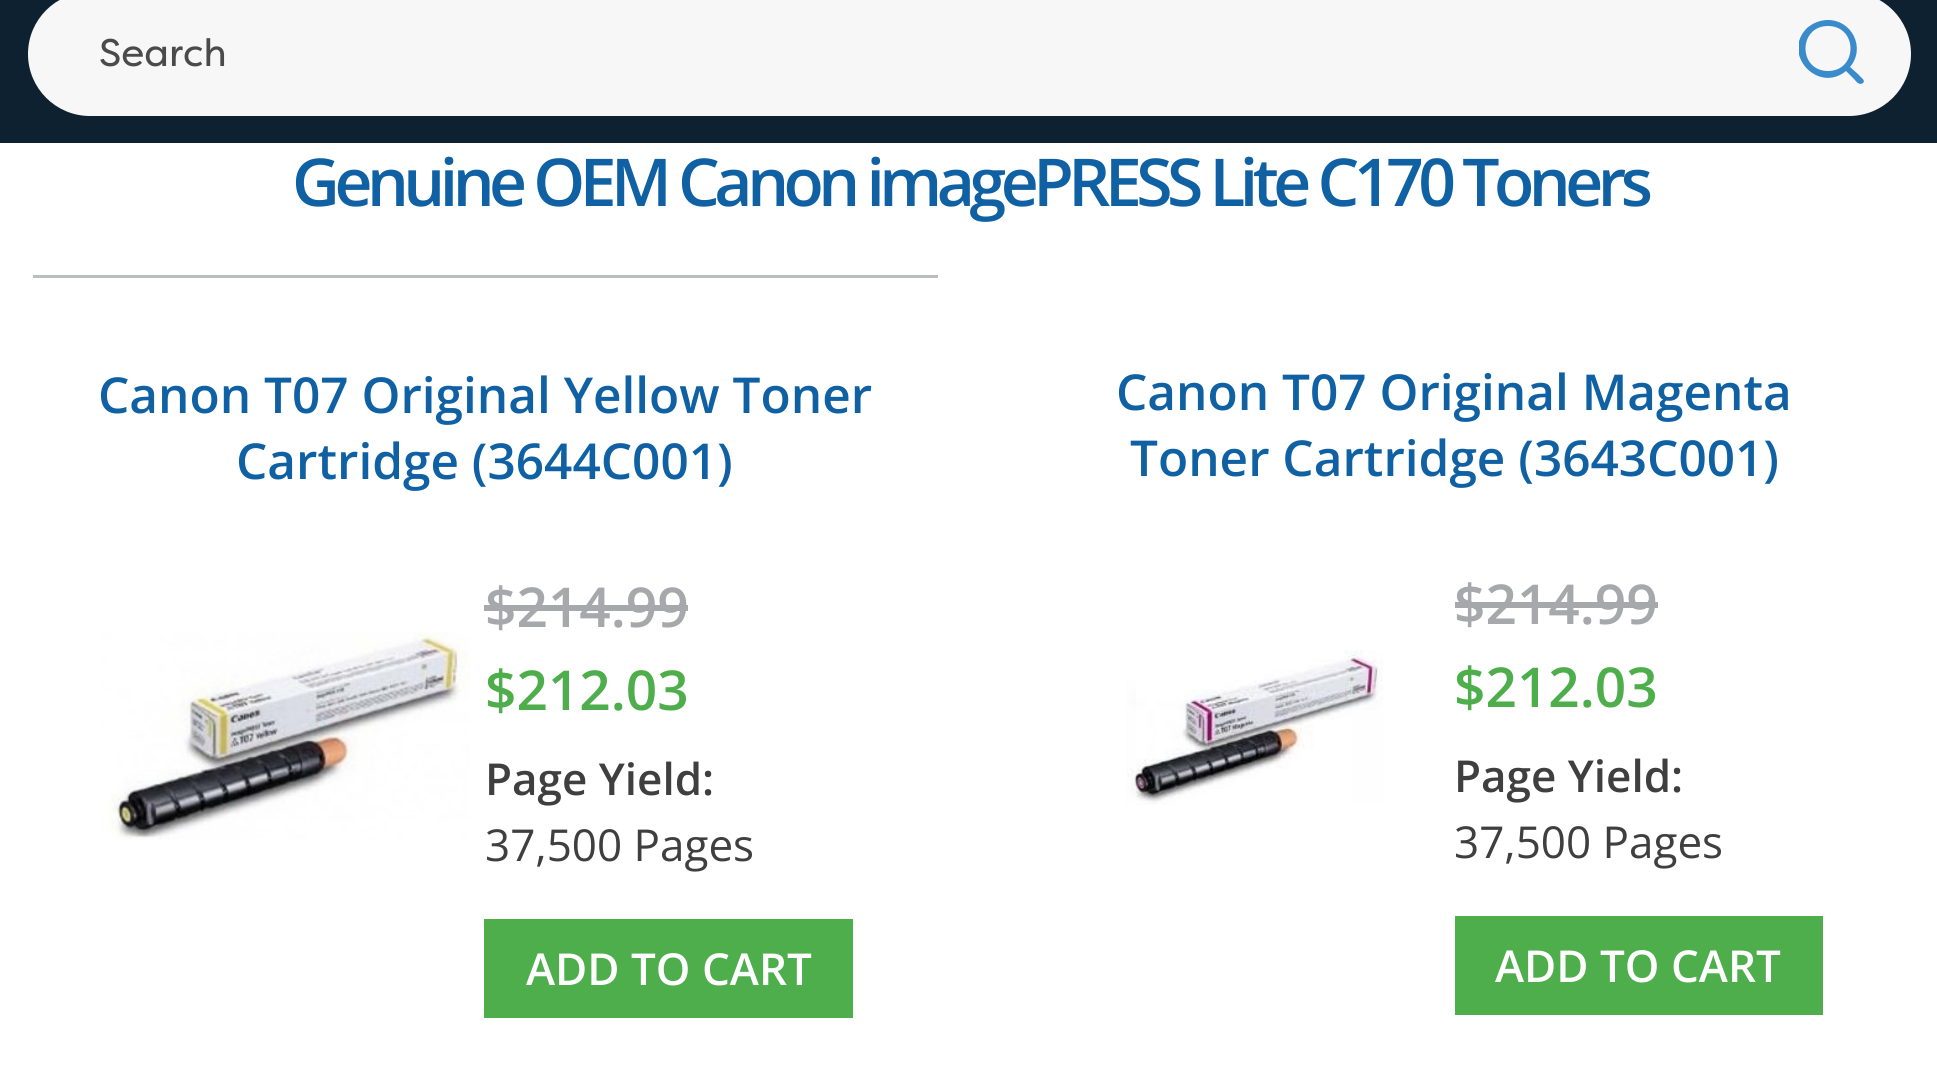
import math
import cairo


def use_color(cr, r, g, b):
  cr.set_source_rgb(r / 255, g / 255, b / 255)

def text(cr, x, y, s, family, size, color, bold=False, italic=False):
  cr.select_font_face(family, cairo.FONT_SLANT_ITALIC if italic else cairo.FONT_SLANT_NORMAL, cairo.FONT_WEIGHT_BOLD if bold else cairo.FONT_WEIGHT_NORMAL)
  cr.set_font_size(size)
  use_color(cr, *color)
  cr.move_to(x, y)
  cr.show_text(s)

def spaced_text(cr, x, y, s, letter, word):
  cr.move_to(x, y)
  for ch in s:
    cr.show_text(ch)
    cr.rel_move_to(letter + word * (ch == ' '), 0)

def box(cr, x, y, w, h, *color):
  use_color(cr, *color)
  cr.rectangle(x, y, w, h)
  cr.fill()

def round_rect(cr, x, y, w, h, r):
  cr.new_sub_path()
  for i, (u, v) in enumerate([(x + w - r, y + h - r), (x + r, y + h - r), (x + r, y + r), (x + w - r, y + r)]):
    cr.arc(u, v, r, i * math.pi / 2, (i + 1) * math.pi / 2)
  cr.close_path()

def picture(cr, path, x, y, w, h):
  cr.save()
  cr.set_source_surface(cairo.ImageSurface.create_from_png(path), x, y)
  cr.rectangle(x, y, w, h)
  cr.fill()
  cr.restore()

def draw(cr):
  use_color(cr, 255, 255, 255)
  cr.paint()
  box(cr, 0, 0, 1937, 143, 13, 33, 48)
  use_color(cr, 247, 247, 248)
  round_rect(cr, 28, -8, 1883, 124, 62)
  cr.fill()
  cr.save()
  cr.rectangle(1799, 19, 68, 69)
  cr.clip()
  use_color(cr, 57, 139, 203)
  cr.new_path()
  cr.move_to(1828, 20)
  cr.curve_to(1820, 20, 1813, 23, 1807, 28)
  cr.curve_to(1781, 54, 1818, 94, 1846, 71)
  cr.line_to(1854, 79)
  cr.curve_to(1856, 81, 1859, 86, 1863, 83)
  cr.curve_to(1866, 80, 1860, 77, 1859, 75)
  cr.line_to(1850, 67)
  cr.curve_to(1866, 48, 1852, 20, 1828, 20)
  cr.close_path()
  cr.move_to(1828, 26)
  cr.curve_to(1858, 26, 1858, 71, 1828, 71)
  cr.curve_to(1798, 71, 1798, 26, 1828, 26)
  cr.close_path()
  cr.fill()
  cr.restore()
  box(cr, 33, 275, 905, 3, 188, 189, 191)
  picture(cr, "img_01.png", 100, 632, 370, 208)
  box(cr, 484, 605, 204, 6, 167, 168, 172)
  box(cr, 484, 919, 369, 99, 78, 174, 76)
  picture(cr, "img_02.png", 1126, 650, 257, 155)
  box(cr, 1455, 602, 203, 6, 167, 168, 172)
  box(cr, 1455, 916, 368, 99, 78, 174, 76)
  text(cr, 99, 66, "Search", "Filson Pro", 38.5, (74, 74, 74))
  cr.select_font_face("Open Sans SemiBold")
  cr.set_font_size(66)
  use_color(cr, 16, 97, 163)
  spaced_text(cr, 292, 206, "Genuine OEM Canon imagePRESS Lite C170 Toners", -5.5, 0)
  text(cr, 98, 413, "Canon T07 Original Yellow Toner", "Open Sans SemiBold", 49.5, (16, 97, 163))
  text(cr, 236, 479, "Cartridge (3644C001)", "Open Sans SemiBold", 49.5, (16, 97, 163))
  text(cr, 485, 627, "$214.99", "Open Sans SemiBold", 55, (167, 168, 172))
  text(cr, 485, 710, "$212.03", "Open Sans SemiBold", 55, (78, 174, 76))
  text(cr, 485, 795, "Page Yield:", "Open Sans SemiBold", 44, (63, 63, 63))
  text(cr, 485, 861, "37,500 Pages", "Open Sans", 44, (63, 63, 63))
  text(cr, 526, 985, "ADD TO CART", "Open Sans SemiBold", 44, (255, 255, 255))
  text(cr, 1116, 410, "Canon T07 Original Magenta", "Open Sans SemiBold", 49.5, (16, 97, 163))
  text(cr, 1130, 476, "Toner Cartridge (3643C001)", "Open Sans SemiBold", 49.5, (16, 97, 163))
  text(cr, 1454, 624, "$214.99", "Open Sans SemiBold", 55, (167, 168, 172))
  text(cr, 1454, 707, "$212.03", "Open Sans SemiBold", 55, (78, 174, 76))
  text(cr, 1454, 792, "Page Yield:", "Open Sans SemiBold", 44, (63, 63, 63))
  text(cr, 1454, 858, "37,500 Pages", "Open Sans", 44, (63, 63, 63))
  text(cr, 1495, 982, "ADD TO CART", "Open Sans SemiBold", 44, (255, 255, 255))


surface = cairo.ImageSurface(cairo.FORMAT_RGB24, 1937, 1080)
cr = cairo.Context(surface)
options = cairo.FontOptions()
options.set_hint_metrics(cairo.HINT_METRICS_OFF)
options.set_hint_style(cairo.HINT_STYLE_NONE)
cr.set_font_options(options)
cr.set_miter_limit(4)
draw(cr)
surface.write_to_png("out.png")
